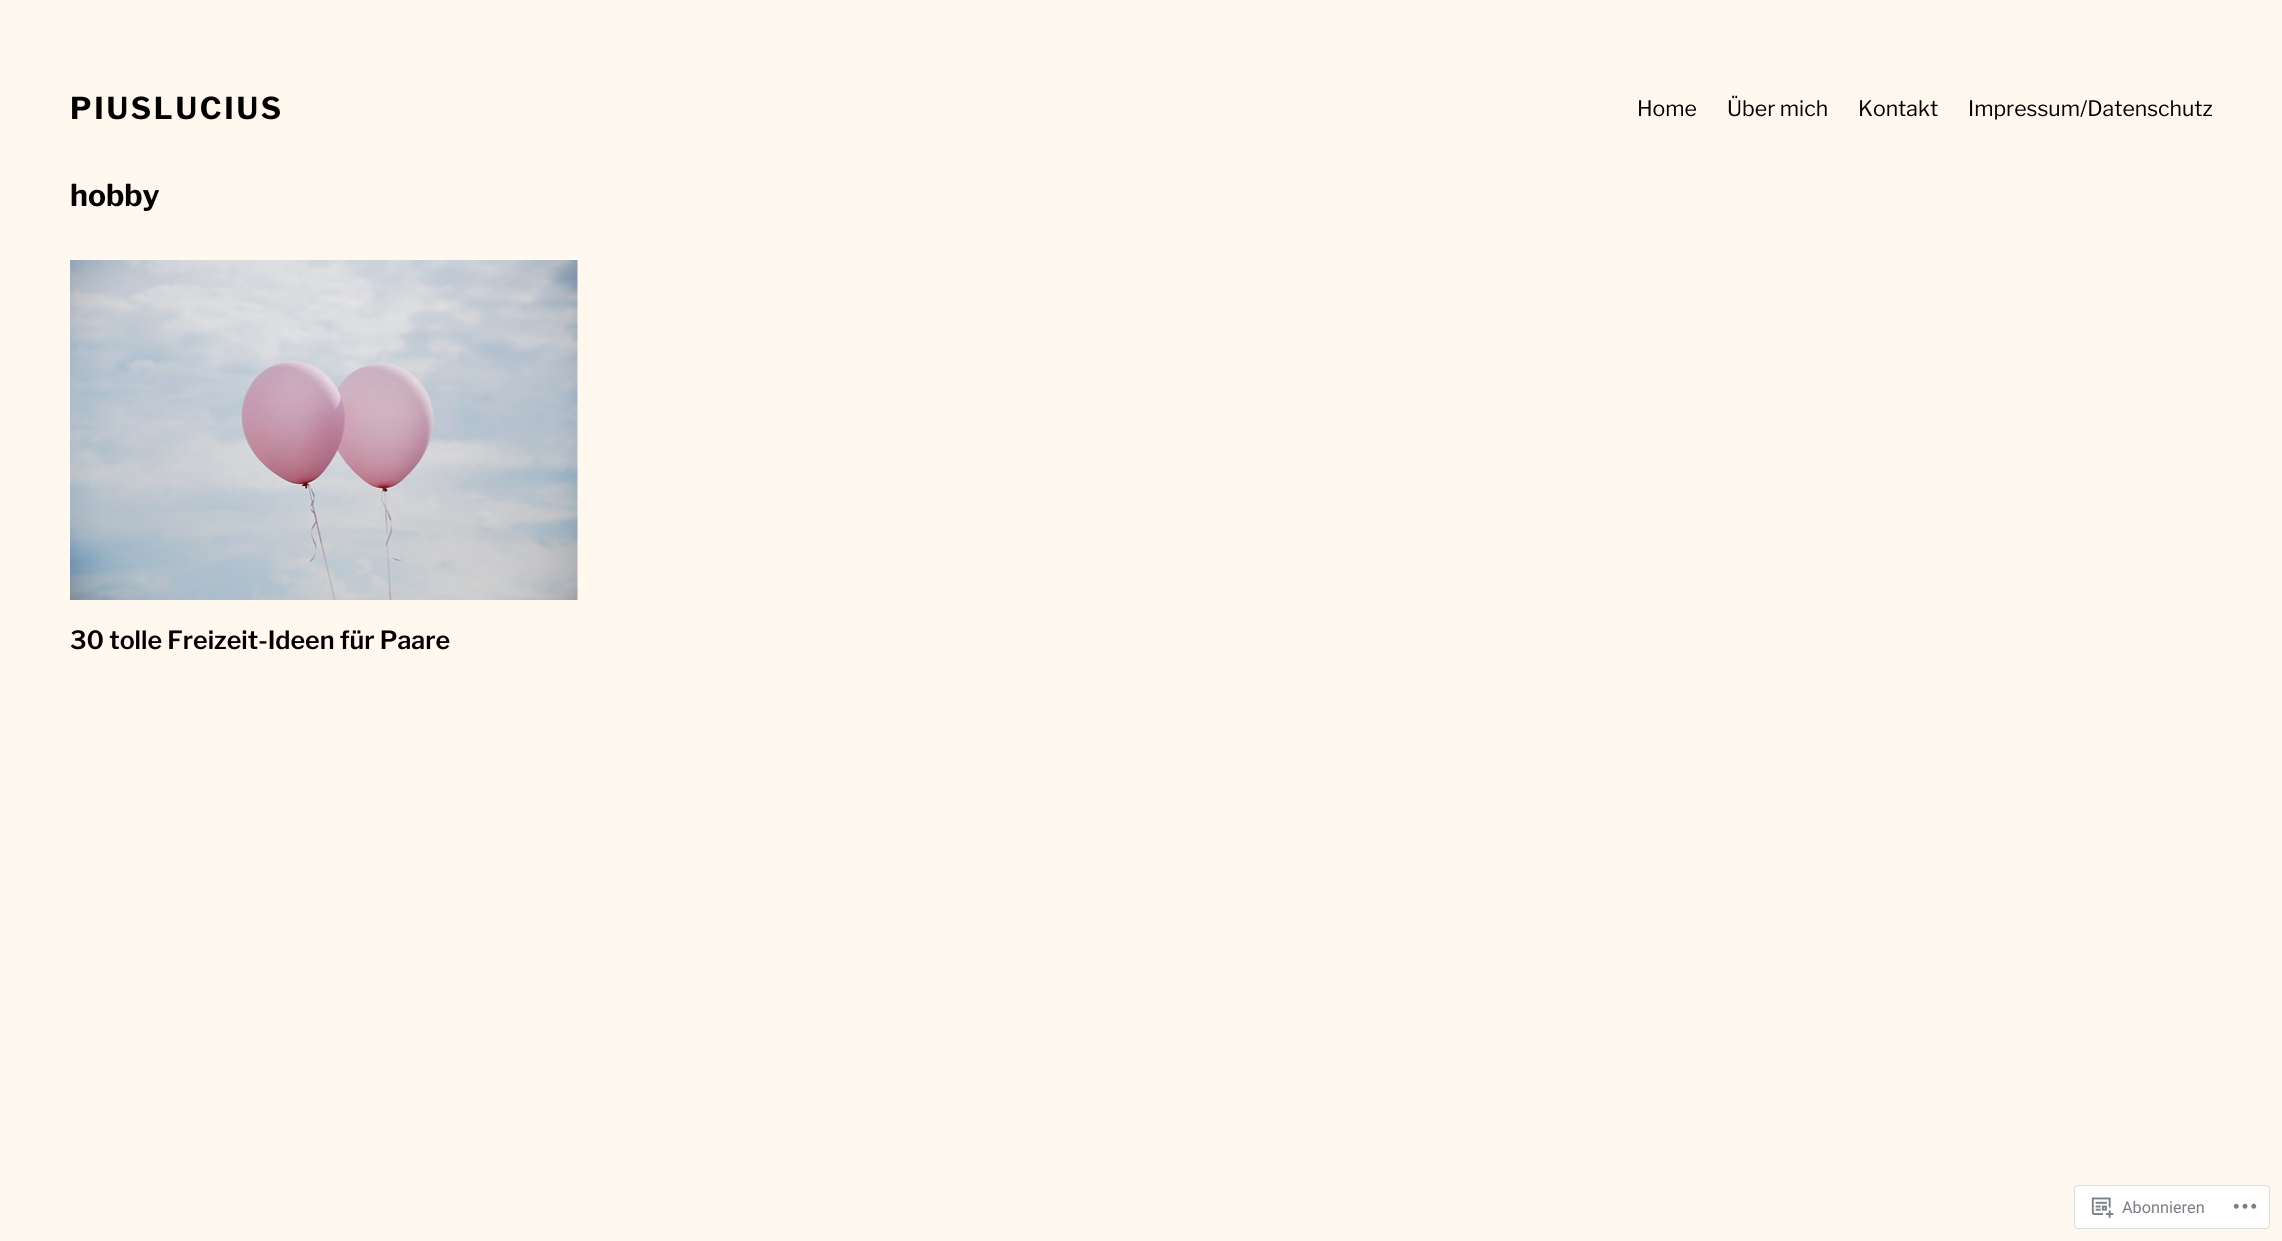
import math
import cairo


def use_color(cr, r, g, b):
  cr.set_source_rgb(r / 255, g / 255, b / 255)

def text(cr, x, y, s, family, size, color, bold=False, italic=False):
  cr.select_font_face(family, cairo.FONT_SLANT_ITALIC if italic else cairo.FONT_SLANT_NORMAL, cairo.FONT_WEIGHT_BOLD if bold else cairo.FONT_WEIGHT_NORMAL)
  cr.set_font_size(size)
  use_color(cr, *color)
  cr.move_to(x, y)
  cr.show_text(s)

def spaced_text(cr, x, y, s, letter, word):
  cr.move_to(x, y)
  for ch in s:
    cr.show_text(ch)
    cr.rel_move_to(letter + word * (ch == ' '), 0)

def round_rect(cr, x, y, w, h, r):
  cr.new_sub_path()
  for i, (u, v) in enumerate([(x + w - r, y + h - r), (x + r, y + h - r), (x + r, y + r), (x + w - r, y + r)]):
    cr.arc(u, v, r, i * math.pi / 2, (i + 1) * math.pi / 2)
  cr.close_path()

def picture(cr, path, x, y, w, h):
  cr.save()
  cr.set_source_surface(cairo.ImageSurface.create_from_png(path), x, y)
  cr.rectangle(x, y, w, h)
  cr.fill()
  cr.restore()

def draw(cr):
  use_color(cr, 255, 248, 238)
  cr.paint()
  picture(cr, "img_01.png", 70, 260, 508, 340)
  use_color(cr, 255, 255, 255)
  round_rect(cr, 2074.5, 1185.5, 195, 43, 3.5)
  cr.fill_preserve()
  use_color(cr, 221, 221, 222)
  cr.set_line_width(1)
  cr.stroke()
  picture(cr, "img_02.png", 2091, 1197, 23, 21)
  picture(cr, "img_03.png", 2233, 1203, 24, 6)
  cr.select_font_face("Libre Franklin", cairo.FONT_SLANT_NORMAL, cairo.FONT_WEIGHT_BOLD)
  cr.set_font_size(30)
  use_color(cr, 0, 0, 0)
  spaced_text(cr, 70, 119, "PIUSLUCIUS", 2.75, 0)
  text(cr, 1637, 116, "Home", "Libre Franklin", 21.25, (0, 0, 0))
  text(cr, 1727, 116, "Über mich", "Libre Franklin", 21.25, (0, 0, 0))
  text(cr, 1858, 116, "Kontakt", "Libre Franklin", 21.25, (0, 0, 0))
  text(cr, 1968, 116, "Impressum/Datenschutz", "Libre Franklin", 21.25, (0, 0, 0))
  text(cr, 70, 206, "hobby", "Libre Franklin", 30, (0, 0, 0), bold=True)
  text(cr, 70, 649, "30 tolle Freizeit-Ideen für Paare", "Libre Franklin SemiBold", 25, (0, 0, 0))
  text(cr, 2122, 1213, "Abonnieren", "Roboto", 16.25, (123, 126, 132))


surface = cairo.ImageSurface(cairo.FORMAT_RGB24, 2282, 1241)
cr = cairo.Context(surface)
options = cairo.FontOptions()
options.set_hint_metrics(cairo.HINT_METRICS_OFF)
options.set_hint_style(cairo.HINT_STYLE_NONE)
cr.set_font_options(options)
cr.set_miter_limit(4)
draw(cr)
surface.write_to_png("out.png")
